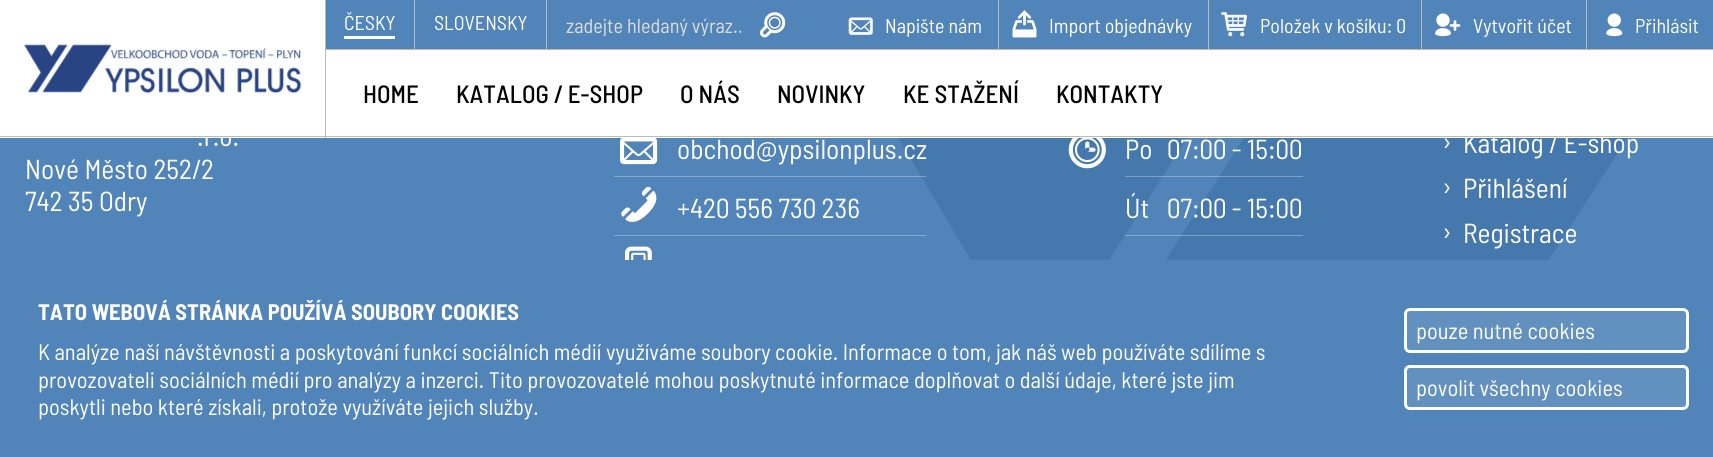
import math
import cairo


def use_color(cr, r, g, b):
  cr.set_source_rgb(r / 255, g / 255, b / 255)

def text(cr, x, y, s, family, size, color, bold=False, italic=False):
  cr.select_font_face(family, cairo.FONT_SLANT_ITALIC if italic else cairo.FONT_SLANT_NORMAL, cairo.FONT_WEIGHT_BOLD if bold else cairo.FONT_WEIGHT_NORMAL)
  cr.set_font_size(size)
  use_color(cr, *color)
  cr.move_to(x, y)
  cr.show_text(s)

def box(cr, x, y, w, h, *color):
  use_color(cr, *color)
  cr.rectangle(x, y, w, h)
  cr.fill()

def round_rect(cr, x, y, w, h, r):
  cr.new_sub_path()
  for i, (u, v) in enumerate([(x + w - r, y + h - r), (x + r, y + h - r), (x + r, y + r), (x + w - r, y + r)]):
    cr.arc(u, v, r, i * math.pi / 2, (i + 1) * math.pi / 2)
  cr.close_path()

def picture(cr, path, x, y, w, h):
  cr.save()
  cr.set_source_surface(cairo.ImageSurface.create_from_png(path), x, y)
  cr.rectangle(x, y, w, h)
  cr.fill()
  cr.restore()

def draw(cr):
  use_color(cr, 81, 132, 184)
  cr.paint()
  use_color(cr, 69, 120, 173)
  cr.new_path()
  cr.move_to(831, 24)
  cr.line_to(995, 301)
  cr.line_to(869, 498)
  cr.line_to(957, 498)
  cr.line_to(1260, 24)
  cr.line_to(1172, 24)
  cr.line_to(1102, 134)
  cr.line_to(1037, 24)
  cr.close_path()
  cr.fill()
  cr.new_path()
  cr.move_to(1395, 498)
  cr.line_to(1013, 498)
  cr.line_to(1317, 24)
  cr.line_to(1701, 24)
  cr.close_path()
  cr.fill()
  box(cr, 0, 0, 1713, 138, 255, 255, 255)
  picture(cr, "img_01.png", 24, 44, 278, 50)
  box(cr, 326, 0, 1387, 49, 81, 132, 184)
  box(cr, 325, 49, 1388, 1, 187, 187, 187)
  box(cr, 414, 0, 1, 49, 187, 187, 187)
  box(cr, 344, 36, 51, 3, 255, 255, 255)
  box(cr, 546, 0, 1, 49, 187, 187, 187)
  picture(cr, "img_02.png", 760, 12, 26, 26)
  box(cr, 998, 0, 1, 49, 187, 187, 187)
  picture(cr, "img_03.png", 848, 17, 25, 18)
  box(cr, 1208, 0, 1, 49, 187, 187, 187)
  picture(cr, "img_04.png", 1012, 10, 25, 28)
  box(cr, 1421, 0, 1, 49, 187, 187, 187)
  picture(cr, "img_05.png", 1221, 12, 26, 25)
  box(cr, 1586, 0, 1, 49, 187, 187, 187)
  picture(cr, "img_06.png", 1435, 13, 26, 24)
  picture(cr, "img_07.png", 1606, 13, 17, 24)
  cr.set_source_rgba(1, 1, 1, 0.3)
  cr.rectangle(614, 176, 312, 1)
  cr.fill()
  picture(cr, "img_08.png", 620, 138, 38, 27)
  box(cr, 614, 235, 312, 1, 133, 169, 205)
  picture(cr, "img_09.png", 621, 186, 36, 36)
  picture(cr, "img_10.png", 625, 246, 27, 14)
  cr.set_source_rgba(1, 1, 1, 0.3)
  cr.rectangle(1125, 176, 178, 1)
  cr.fill()
  picture(cr, "img_11.png", 1068, 138, 38, 31)
  cr.rectangle(1125, 235, 178, 1)
  cr.fill()
  box(cr, 895, 260, 654, 197, 81, 132, 184)
  use_color(cr, 98, 144, 191)
  round_rect(cr, 1405.5, 309.5, 282, 42, 4.5)
  cr.fill_preserve()
  use_color(cr, 255, 255, 255)
  cr.set_line_width(3)
  cr.stroke()
  use_color(cr, 98, 144, 191)
  round_rect(cr, 1405.5, 366.5, 282, 42, 4.5)
  cr.fill_preserve()
  use_color(cr, 255, 255, 255)
  cr.stroke()
  text(cr, 344, 30, "ČESKY", "Barlow Semi Condensed", 20, (255, 255, 255))
  text(cr, 434, 30, "SLOVENSKY", "Barlow Semi Condensed", 20, (255, 255, 255))
  cr.save()
  cr.rectangle(566, 13, 175, 23)
  cr.clip()
  text(cr, 566, 33, "zadejte hledaný výraz..", "Barlow Semi Condensed", 20.25, (221, 221, 221))
  cr.restore()
  text(cr, 885, 33, "Napište nám", "Barlow Semi Condensed", 20, (255, 255, 255))
  text(cr, 1049, 33, "Import objednávky", "Barlow Semi Condensed", 20, (255, 255, 255))
  text(cr, 1260, 33, "Položek v košíku: 0", "Barlow Semi Condensed", 20, (255, 255, 255))
  text(cr, 1473, 33, "Vytvořit účet", "Barlow Semi Condensed", 20, (255, 255, 255))
  text(cr, 1635, 33, "Přihlásit", "Barlow Semi Condensed", 20, (255, 255, 255))
  text(cr, 363, 103, "HOME", "Barlow Semi Condensed Medium", 25, (0, 0, 0))
  text(cr, 456, 103, "KATALOG / E-SHOP", "Barlow Semi Condensed Medium", 25, (0, 0, 0))
  text(cr, 680, 103, "O NÁS", "Barlow Semi Condensed Medium", 25, (0, 0, 0))
  text(cr, 777, 103, "NOVINKY", "Barlow Semi Condensed Medium", 25, (0, 0, 0))
  text(cr, 903, 103, "KE STAŽENÍ", "Barlow Semi Condensed Medium", 25, (0, 0, 0))
  text(cr, 1056, 103, "KONTAKTY", "Barlow Semi Condensed Medium", 25, (0, 0, 0))
  text(cr, 197, 146, ".r.o.", "Barlow Semi Condensed", 27.5, (255, 255, 255))
  text(cr, 25, 179, "Nové Město 252/2", "Barlow Semi Condensed", 27.5, (255, 255, 255))
  text(cr, 25, 211, "742 35 Odry", "Barlow Semi Condensed", 27.5, (255, 255, 255))
  text(cr, 677, 159, "obchod@ypsilonplus.cz", "Barlow Semi Condensed", 27.5, (255, 255, 255))
  text(cr, 677, 218, "+420 556 730 236", "Barlow Semi Condensed", 27.5, (255, 255, 255))
  text(cr, 1125, 159, "Po", "Barlow Semi Condensed", 27.5, (255, 255, 255))
  text(cr, 1167, 159, "07:00 - 15:00", "Barlow Semi Condensed", 27.5, (255, 255, 255))
  text(cr, 1125, 218, "Út", "Barlow Semi Condensed", 27.5, (255, 255, 255))
  text(cr, 1167, 218, "07:00 - 15:00", "Barlow Semi Condensed", 27.5, (255, 255, 255))
  text(cr, 1442, 151, "›", "Barlow Semi Condensed", 27.5, (255, 255, 255))
  text(cr, 1463, 153, "Katalog / E-shop", "Barlow Semi Condensed", 27.5, (255, 255, 255))
  box(cr, 0, 136, 1713, 1, 187, 187, 187)
  box(cr, 325, 0, 1, 138, 187, 187, 187)
  text(cr, 1442, 196, "›", "Barlow Semi Condensed", 27.5, (255, 255, 255))
  text(cr, 1463, 198, "Přihlášení", "Barlow Semi Condensed", 27.5, (255, 255, 255))
  text(cr, 1442, 241, "›", "Barlow Semi Condensed", 27.5, (255, 255, 255))
  text(cr, 1463, 243, "Registrace", "Barlow Semi Condensed", 27.5, (255, 255, 255))
  text(cr, 38, 320, "TATO WEBOVÁ STRÁNKA POUŽÍVÁ SOUBORY COOKIES", "Barlow Semi Condensed", 22.5, (255, 255, 255), bold=True)
  text(cr, 38, 360, "K analýze naší návštěvnosti a poskytování funkcí sociálních médií využíváme soubory cookie. Informace o tom, jak náš web používáte sdílíme s", "Barlow Semi Condensed", 22.5, (255, 255, 255))
  text(cr, 38, 388, "provozovateli sociálních médií pro analýzy a inzerci. Tito provozovatelé mohou poskytnuté informace doplňovat o další údaje, které jste jim", "Barlow Semi Condensed", 22.5, (255, 255, 255))
  text(cr, 38, 415, "poskytli nebo které získali, protože využíváte jejich služby.", "Barlow Semi Condensed", 22.5, (255, 255, 255))
  text(cr, 1416, 339, "pouze nutné cookies", "Barlow Semi Condensed", 22.5, (255, 255, 255))
  text(cr, 1416, 396, "povolit všechny cookies", "Barlow Semi Condensed", 22.5, (255, 255, 255))


surface = cairo.ImageSurface(cairo.FORMAT_RGB24, 1713, 457)
cr = cairo.Context(surface)
options = cairo.FontOptions()
options.set_hint_metrics(cairo.HINT_METRICS_OFF)
options.set_hint_style(cairo.HINT_STYLE_NONE)
cr.set_font_options(options)
cr.set_miter_limit(4)
draw(cr)
surface.write_to_png("out.png")
